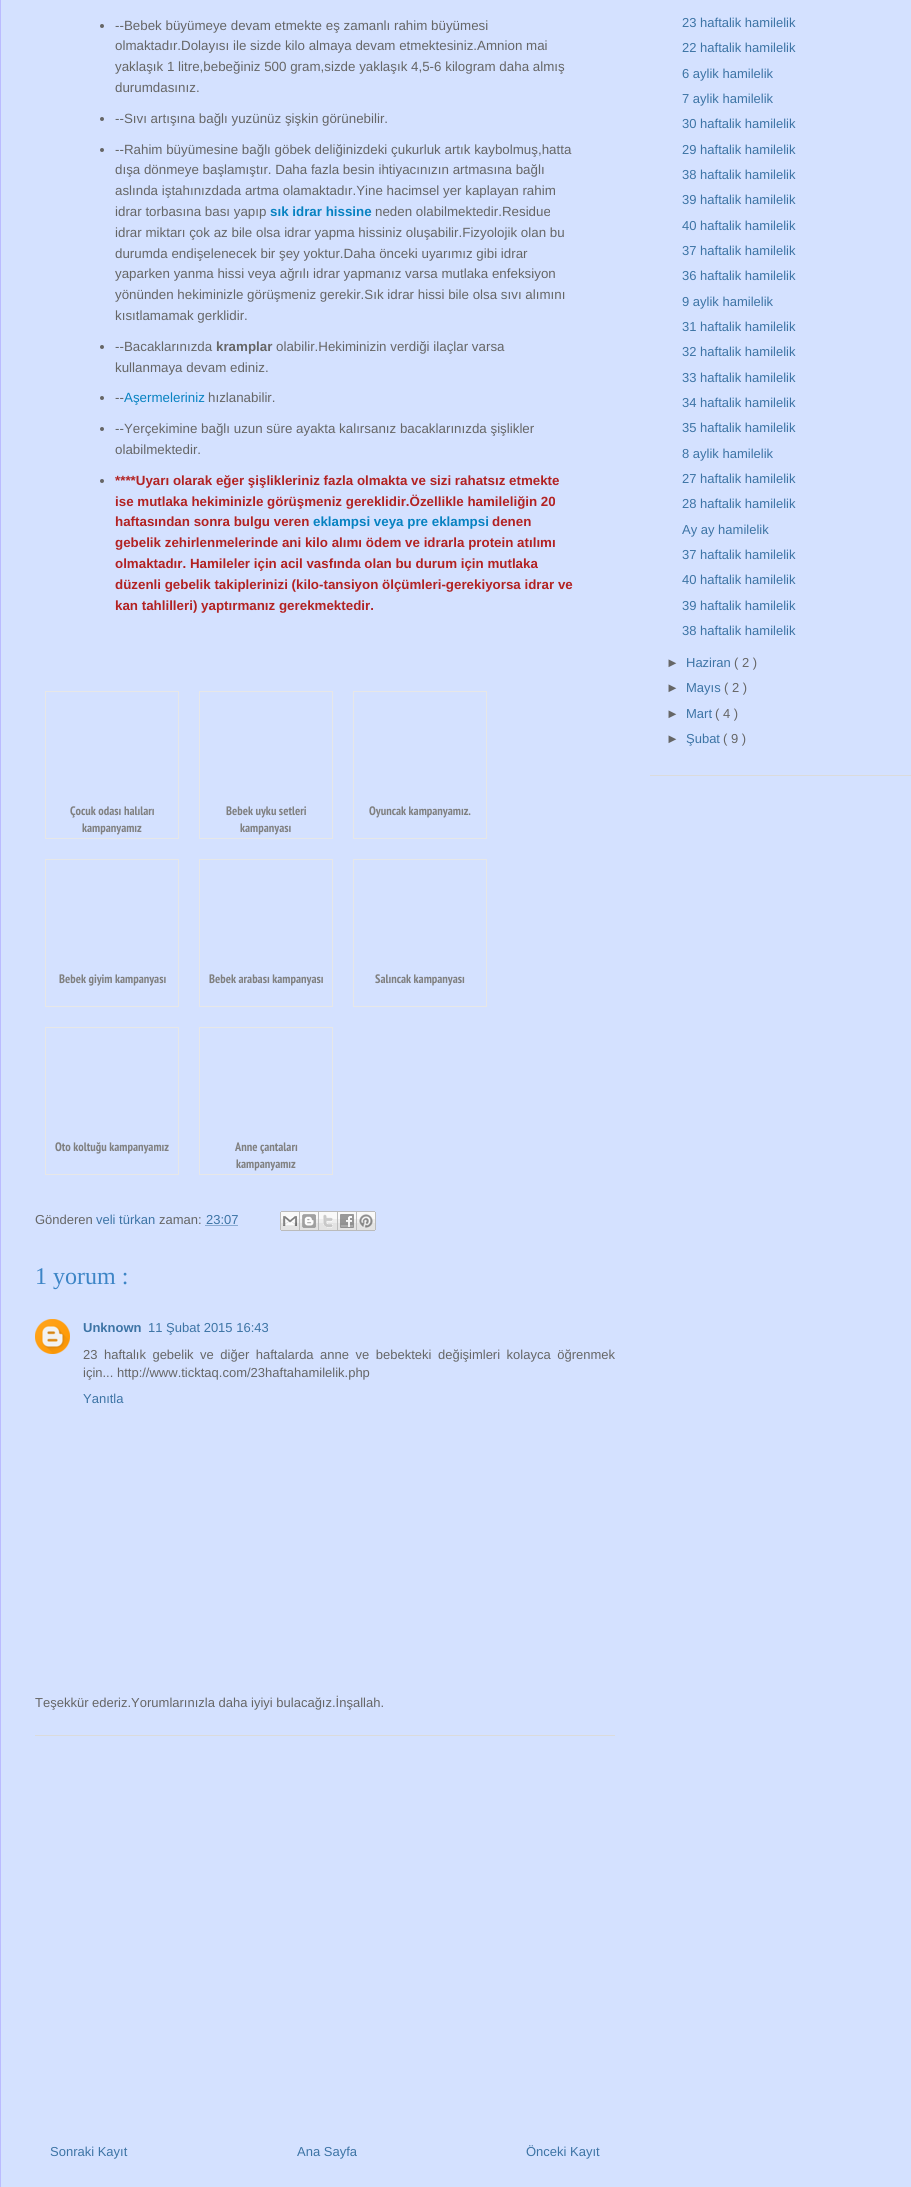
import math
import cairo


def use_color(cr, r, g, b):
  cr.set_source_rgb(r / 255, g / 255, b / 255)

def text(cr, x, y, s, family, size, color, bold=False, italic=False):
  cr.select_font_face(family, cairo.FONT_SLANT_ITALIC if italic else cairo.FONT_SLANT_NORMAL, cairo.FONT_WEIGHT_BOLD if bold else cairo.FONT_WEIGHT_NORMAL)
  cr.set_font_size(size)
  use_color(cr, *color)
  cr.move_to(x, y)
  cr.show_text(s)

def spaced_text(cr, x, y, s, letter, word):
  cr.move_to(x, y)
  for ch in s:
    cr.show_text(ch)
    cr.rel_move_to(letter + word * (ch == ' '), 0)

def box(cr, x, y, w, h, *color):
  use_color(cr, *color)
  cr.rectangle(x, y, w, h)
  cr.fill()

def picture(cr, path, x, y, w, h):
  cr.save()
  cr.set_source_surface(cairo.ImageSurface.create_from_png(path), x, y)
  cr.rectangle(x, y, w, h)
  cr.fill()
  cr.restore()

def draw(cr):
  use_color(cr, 212, 225, 255)
  cr.paint()
  box(cr, 0, 0, 1, 2187, 187, 187, 255)
  box(cr, 35, 1735, 580, 1, 219, 219, 219)
  use_color(cr, 102, 102, 102)
  cr.arc(102, 26, 2, 0, 2 * math.pi)
  cr.fill()
  cr.arc(102, 119, 2, 0, 2 * math.pi)
  cr.fill()
  cr.arc(102, 150, 2, 0, 2 * math.pi)
  cr.fill()
  cr.arc(102, 347, 2, 0, 2 * math.pi)
  cr.fill()
  cr.arc(102, 398, 2, 0, 2 * math.pi)
  cr.fill()
  cr.arc(102, 429, 2, 0, 2 * math.pi)
  cr.fill()
  cr.arc(102, 481, 2, 0, 2 * math.pi)
  cr.fill()
  cr.rectangle(45.5, 691.5, 133, 147)
  use_color(cr, 231, 231, 231)
  cr.set_line_width(1)
  cr.stroke()
  cr.rectangle(199.5, 691.5, 133, 147)
  cr.stroke()
  cr.rectangle(353.5, 691.5, 133, 147)
  cr.stroke()
  cr.rectangle(45.5, 859.5, 133, 147)
  cr.stroke()
  cr.rectangle(199.5, 859.5, 133, 147)
  cr.stroke()
  cr.rectangle(353.5, 859.5, 133, 147)
  cr.stroke()
  cr.rectangle(45.5, 1027.5, 133, 147)
  cr.stroke()
  cr.rectangle(199.5, 1027.5, 133, 147)
  cr.stroke()
  cr.new_path()
  cr.move_to(205.5, 1225.5)
  cr.line_to(238, 1225.5)
  use_color(cr, 61, 116, 165)
  cr.set_dash([1, 1])
  cr.stroke()
  picture(cr, "img_01.png", 280, 1211, 20, 20)
  picture(cr, "img_02.png", 300, 1211, 19, 20)
  picture(cr, "img_03.png", 319, 1211, 19, 20)
  picture(cr, "img_04.png", 338, 1211, 19, 20)
  picture(cr, "img_05.png", 357, 1211, 19, 20)
  picture(cr, "img_06.png", 35, 1319, 35, 35)
  box(cr, 650, 775, 261, 1, 219, 219, 219)
  text(cr, 115, 30, "--Bebek büyümeye devam etmekte eş zamanlı rahim büyümesi", "Liberation Sans", 13.35, (102, 102, 102))
  text(cr, 115, 50, "olmaktadır.Dolayısı ile sizde kilo almaya devam etmektesiniz.Amnion mai", "Liberation Sans", 13.35, (102, 102, 102))
  text(cr, 115, 71, "yaklaşık 1 litre,bebeğiniz 500 gram,sizde yaklaşık 4,5-6 kilogram daha almış", "Liberation Sans", 13.35, (102, 102, 102))
  text(cr, 115, 92, "durumdasınız.", "Liberation Sans", 13.35, (102, 102, 102))
  text(cr, 115, 123, "--Sıvı artışına bağlı yuzünüz şişkin görünebilir.", "Liberation Sans", 13.35, (102, 102, 102))
  text(cr, 115, 154, "--Rahim büyümesine bağlı göbek deliğinizdeki çukurluk artık kaybolmuş,hatta", "Liberation Sans", 13.35, (102, 102, 102))
  text(cr, 115, 174, "dışa dönmeye başlamıştır. Daha fazla besin ihtiyacınızın artmasına bağlı", "Liberation Sans", 13.35, (102, 102, 102))
  text(cr, 115, 195, "aslında iştahınızdada artma olamaktadır.Yine hacimsel yer kaplayan rahim", "Liberation Sans", 13.35, (102, 102, 102))
  text(cr, 115, 216, "idrar torbasına bası yapıp", "Liberation Sans", 13.35, (102, 102, 102))
  text(cr, 270, 216, "sık idrar hissine", "Liberation Sans", 13.35, (7, 130, 193), bold=True)
  text(cr, 375, 216, "neden olabilmektedir.Residue", "Liberation Sans", 13.35, (102, 102, 102))
  text(cr, 115, 237, "idrar miktarı çok az bile olsa idrar yapma hissiniz oluşabilir.Fizyolojik olan bu", "Liberation Sans", 13.35, (102, 102, 102))
  text(cr, 115, 258, "durumda endişelenecek bir şey yoktur.Daha önceki uyarımız gibi idrar", "Liberation Sans", 13.35, (102, 102, 102))
  text(cr, 115, 278, "yaparken yanma hissi veya ağrılı idrar yapmanız varsa mutlaka enfeksiyon", "Liberation Sans", 13.35, (102, 102, 102))
  text(cr, 115, 299, "yönünden hekiminizle görüşmeniz gerekir.Sık idrar hissi bile olsa sıvı alımını", "Liberation Sans", 13.35, (102, 102, 102))
  text(cr, 115, 320, "kısıtlamamak gerklidir.", "Liberation Sans", 13.35, (102, 102, 102))
  text(cr, 115, 351, "--Bacaklarınızda", "Liberation Sans", 13.35, (102, 102, 102))
  text(cr, 216, 351, "kramplar", "Liberation Sans", 13.35, (102, 102, 102), bold=True)
  text(cr, 276, 351, "olabilir.Hekiminizin verdiği ilaçlar varsa", "Liberation Sans", 13.35, (102, 102, 102))
  text(cr, 115, 372, "kullanmaya devam ediniz.", "Liberation Sans", 13.35, (102, 102, 102))
  text(cr, 115, 402, "--", "Liberation Sans", 13.35, (102, 102, 102))
  text(cr, 124, 402, "Aşermeleriniz", "Liberation Sans", 13.35, (7, 130, 193))
  text(cr, 208, 402, "hızlanabilir.", "Liberation Sans", 13.35, (102, 102, 102))
  text(cr, 115, 433, "--Yerçekimine bağlı uzun süre ayakta kalırsanız bacaklarınızda şişlikler", "Liberation Sans", 13.35, (102, 102, 102))
  text(cr, 115, 454, "olabilmektedir.", "Liberation Sans", 13.35, (102, 102, 102))
  text(cr, 115, 485, "****Uyarı olarak eğer şişlikleriniz fazla olmakta ve sizi rahatsız etmekte", "Liberation Sans", 13.35, (178, 34, 34), bold=True)
  text(cr, 115, 506, "ise mutlaka hekiminizle görüşmeniz gereklidir.Özellikle hamileliğin 20", "Liberation Sans", 13.35, (178, 34, 34), bold=True)
  text(cr, 115, 526, "haftasından sonra bulgu veren", "Liberation Sans", 13.35, (178, 34, 34), bold=True)
  text(cr, 313, 526, "eklampsi veya pre eklampsi", "Liberation Sans", 13.35, (7, 130, 193), bold=True)
  text(cr, 492, 526, "denen", "Liberation Sans", 13.35, (178, 34, 34), bold=True)
  text(cr, 115, 547, "gebelik zehirlenmelerinde ani kilo alımı ödem ve idrarla protein atılımı", "Liberation Sans", 13.35, (178, 34, 34), bold=True)
  text(cr, 115, 568, "olmaktadır. Hamileler için acil vasfında olan bu durum için mutlaka", "Liberation Sans", 13.35, (178, 34, 34), bold=True)
  text(cr, 115, 589, "düzenli gebelik takiplerinizi (kilo-tansiyon ölçümleri-gerekiyorsa idrar ve", "Liberation Sans", 13.35, (178, 34, 34), bold=True)
  text(cr, 115, 610, "kan tahlilleri) yaptırmanız gerekmektedir.", "Liberation Sans", 13.35, (178, 34, 34), bold=True)
  text(cr, 70, 815, "Çocuk odası halıları", "PT Sans Narrow", 12.25, (128, 128, 128), bold=True)
  text(cr, 82, 832, "kampanyamız", "PT Sans Narrow", 12.25, (128, 128, 128), bold=True)
  text(cr, 226, 815, "Bebek uyku setleri", "PT Sans Narrow", 12.25, (128, 128, 128), bold=True)
  text(cr, 240, 832, "kampanyası", "PT Sans Narrow", 12.25, (128, 128, 128), bold=True)
  text(cr, 369, 815, "Oyuncak kampanyamız.", "PT Sans Narrow", 12.25, (128, 128, 128), bold=True)
  text(cr, 59, 983, "Bebek giyim kampanyası", "PT Sans Narrow", 12.25, (128, 128, 128), bold=True)
  text(cr, 209, 983, "Bebek arabası kampanyası", "PT Sans Narrow", 12.25, (128, 128, 128), bold=True)
  text(cr, 375, 983, "Salıncak kampanyası", "PT Sans Narrow", 12.25, (128, 128, 128), bold=True)
  text(cr, 55, 1151, "Oto koltuğu kampanyamız", "PT Sans Narrow", 12.25, (128, 128, 128), bold=True)
  text(cr, 235, 1151, "Anne çantaları", "PT Sans Narrow", 12.25, (128, 128, 128), bold=True)
  text(cr, 236, 1168, "kampanyamız", "PT Sans Narrow", 12.25, (128, 128, 128), bold=True)
  text(cr, 35, 1224, "Gönderen", "Liberation Sans", 13, (102, 102, 102))
  text(cr, 96, 1224, "veli türkan", "Liberation Sans", 13, (61, 116, 165))
  text(cr, 159, 1224, "zaman:", "Liberation Sans", 13, (102, 102, 102))
  text(cr, 206, 1224, "23:07", "Liberation Sans", 13, (61, 116, 165))
  text(cr, 35, 1284, "1 yorum :", "Liberation Serif", 24, (61, 133, 198))
  text(cr, 83, 1332, "Unknown", "Liberation Sans", 13, (61, 116, 165), bold=True)
  text(cr, 148, 1332, "11 Şubat 2015 16:43", "Liberation Sans", 13, (61, 116, 165))
  use_color(cr, 102, 102, 102)
  spaced_text(cr, 83, 1359, "23 haftalık gebelik ve diğer haftalarda anne ve bebekteki değişimleri kolayca öğrenmek", 0, 2.9)
  text(cr, 83, 1377, "için... http://www.ticktaq.com/23haftahamilelik.php", "Liberation Sans", 13, (102, 102, 102))
  text(cr, 83, 1403, "Yanıtla", "Liberation Sans", 13, (61, 116, 165))
  text(cr, 35, 1707, "Teşekkür ederiz.Yorumlarınızla daha iyiyi bulacağız.İnşallah.", "Liberation Sans", 13, (102, 102, 102))
  text(cr, 50, 2156, "Sonraki Kayıt", "Liberation Sans", 13, (61, 116, 165))
  text(cr, 297, 2156, "Ana Sayfa", "Liberation Sans", 13, (61, 116, 165))
  text(cr, 526, 2156, "Önceki Kayıt", "Liberation Sans", 13, (61, 116, 165))
  text(cr, 682, 27, "23 haftalik hamilelik", "Liberation Sans", 13, (61, 116, 165))
  text(cr, 682, 52, "22 haftalik hamilelik", "Liberation Sans", 13, (61, 116, 165))
  text(cr, 682, 78, "6 aylik hamilelik", "Liberation Sans", 13, (61, 116, 165))
  text(cr, 682, 103, "7 aylik hamilelik", "Liberation Sans", 13, (61, 116, 165))
  text(cr, 682, 128, "30 haftalik hamilelik", "Liberation Sans", 13, (61, 116, 165))
  text(cr, 682, 154, "29 haftalik hamilelik", "Liberation Sans", 13, (61, 116, 165))
  text(cr, 682, 179, "38 haftalik hamilelik", "Liberation Sans", 13, (61, 116, 165))
  text(cr, 682, 204, "39 haftalik hamilelik", "Liberation Sans", 13, (61, 116, 165))
  text(cr, 682, 230, "40 haftalik hamilelik", "Liberation Sans", 13, (61, 116, 165))
  text(cr, 682, 255, "37 haftalik hamilelik", "Liberation Sans", 13, (61, 116, 165))
  text(cr, 682, 280, "36 haftalik hamilelik", "Liberation Sans", 13, (61, 116, 165))
  text(cr, 682, 306, "9 aylik hamilelik", "Liberation Sans", 13, (61, 116, 165))
  text(cr, 682, 331, "31 haftalik hamilelik", "Liberation Sans", 13, (61, 116, 165))
  text(cr, 682, 356, "32 haftalik hamilelik", "Liberation Sans", 13, (61, 116, 165))
  text(cr, 682, 382, "33 haftalik hamilelik", "Liberation Sans", 13, (61, 116, 165))
  text(cr, 682, 407, "34 haftalik hamilelik", "Liberation Sans", 13, (61, 116, 165))
  text(cr, 682, 432, "35 haftalik hamilelik", "Liberation Sans", 13, (61, 116, 165))
  text(cr, 682, 458, "8 aylik hamilelik", "Liberation Sans", 13, (61, 116, 165))
  text(cr, 682, 483, "27 haftalik hamilelik", "Liberation Sans", 13, (61, 116, 165))
  text(cr, 682, 508, "28 haftalik hamilelik", "Liberation Sans", 13, (61, 116, 165))
  text(cr, 682, 534, "Ay ay hamilelik", "Liberation Sans", 13, (61, 116, 165))
  text(cr, 682, 559, "37 haftalik hamilelik", "Liberation Sans", 13, (61, 116, 165))
  text(cr, 682, 584, "40 haftalik hamilelik", "Liberation Sans", 13, (61, 116, 165))
  text(cr, 682, 610, "39 haftalik hamilelik", "Liberation Sans", 13, (61, 116, 165))
  text(cr, 682, 635, "38 haftalik hamilelik", "Liberation Sans", 13, (61, 116, 165))
  text(cr, 666, 667, "►", "Liberation Sans", 13, (102, 102, 102))
  text(cr, 686, 667, "Haziran", "Liberation Sans", 13, (61, 116, 165))
  text(cr, 734, 667, "( 2 )", "Liberation Sans", 13, (102, 102, 102))
  text(cr, 666, 692, "►", "Liberation Sans", 13, (102, 102, 102))
  text(cr, 686, 692, "Mayıs", "Liberation Sans", 13, (61, 116, 165))
  text(cr, 724, 692, "( 2 )", "Liberation Sans", 13, (102, 102, 102))
  text(cr, 666, 718, "►", "Liberation Sans", 13, (102, 102, 102))
  text(cr, 686, 718, "Mart", "Liberation Sans", 13, (61, 116, 165))
  text(cr, 715, 718, "( 4 )", "Liberation Sans", 13, (102, 102, 102))
  text(cr, 666, 743, "►", "Liberation Sans", 13, (102, 102, 102))
  text(cr, 686, 743, "Şubat", "Liberation Sans", 13, (61, 116, 165))
  text(cr, 723, 743, "( 9 )", "Liberation Sans", 13, (102, 102, 102))


surface = cairo.ImageSurface(cairo.FORMAT_RGB24, 911, 2187)
cr = cairo.Context(surface)
options = cairo.FontOptions()
options.set_hint_metrics(cairo.HINT_METRICS_OFF)
options.set_hint_style(cairo.HINT_STYLE_NONE)
cr.set_font_options(options)
cr.set_miter_limit(4)
draw(cr)
surface.write_to_png("out.png")
